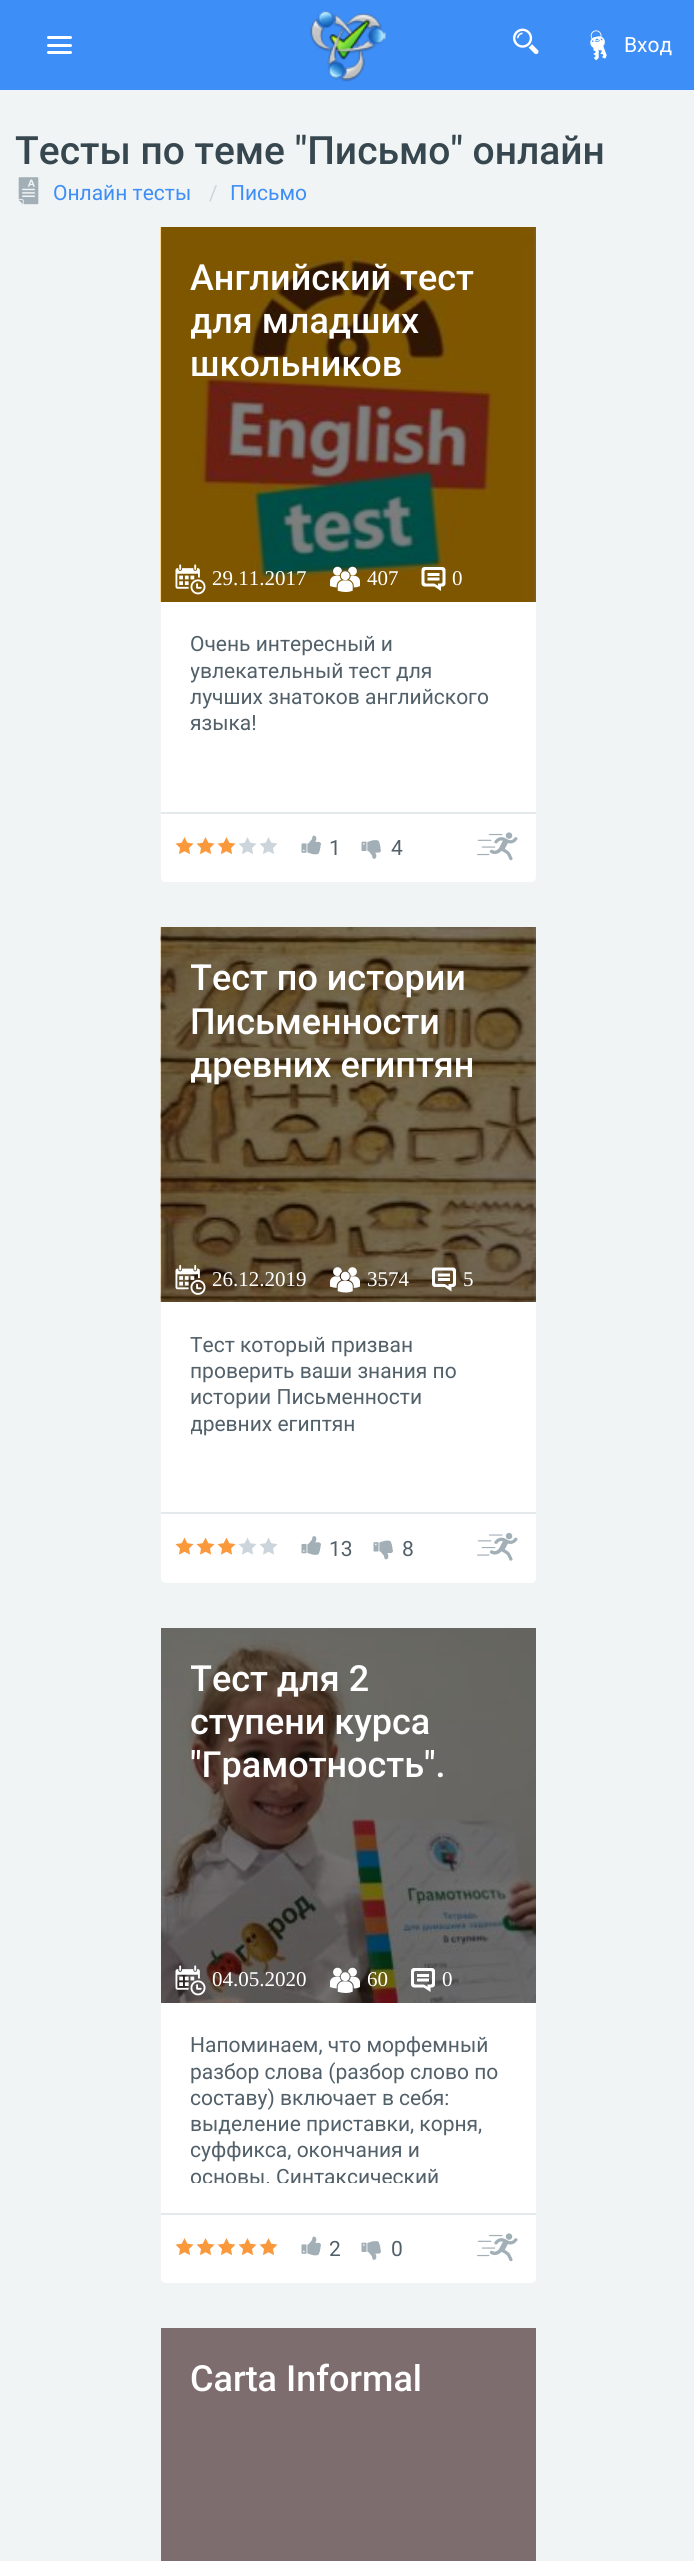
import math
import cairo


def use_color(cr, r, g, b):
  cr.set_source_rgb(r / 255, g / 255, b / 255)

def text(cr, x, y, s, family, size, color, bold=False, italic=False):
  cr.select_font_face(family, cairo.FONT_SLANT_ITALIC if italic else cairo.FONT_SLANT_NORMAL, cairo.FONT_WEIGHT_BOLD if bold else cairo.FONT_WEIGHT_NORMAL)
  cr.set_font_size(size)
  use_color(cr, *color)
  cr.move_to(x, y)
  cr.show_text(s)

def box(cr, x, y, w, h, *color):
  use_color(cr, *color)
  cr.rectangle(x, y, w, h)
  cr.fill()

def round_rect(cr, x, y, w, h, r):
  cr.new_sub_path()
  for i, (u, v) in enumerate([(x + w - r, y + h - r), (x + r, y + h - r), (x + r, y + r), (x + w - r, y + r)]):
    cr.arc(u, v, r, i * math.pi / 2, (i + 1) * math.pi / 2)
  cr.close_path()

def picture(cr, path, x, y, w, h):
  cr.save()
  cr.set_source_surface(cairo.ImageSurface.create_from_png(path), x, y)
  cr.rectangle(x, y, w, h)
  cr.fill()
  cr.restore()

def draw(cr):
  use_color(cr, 62, 142, 247)
  cr.paint()
  use_color(cr, 255, 255, 255)
  round_rect(cr, 47, 36, 25, 3, 1.5)
  cr.fill()
  round_rect(cr, 47, 44, 25, 3, 1.5)
  cr.fill()
  round_rect(cr, 47, 51, 25, 3, 1.5)
  cr.fill()
  picture(cr, "img_01.png", 310, 10, 76, 72)
  picture(cr, "img_02.png", 513, 28, 26, 27)
  picture(cr, "img_03.png", 590, 30, 17, 31)
  box(cr, 0, 90, 694, 2471, 241, 244, 245)
  picture(cr, "img_04.png", 18, 177, 21, 28)
  use_color(cr, 255, 255, 255)
  round_rect(cr, 161, 227, 375, 655, 5)
  cr.fill()
  picture(cr, "img_05.png", 160, 227, 376, 375)
  cr.set_source_rgba(0, 0, 0, 0.5)
  cr.rectangle(161, 227, 375, 375)
  cr.fill()
  picture(cr, "img_06.png", 175, 564, 31, 31)
  picture(cr, "img_07.png", 330, 566, 30, 26)
  picture(cr, "img_08.png", 421, 567, 25, 24)
  box(cr, 161, 812, 375, 2, 228, 234, 236)
  picture(cr, "img_09.png", 175, 837, 19, 18)
  picture(cr, "img_09.png", 196, 837, 19, 18)
  picture(cr, "img_09.png", 217, 837, 19, 18)
  picture(cr, "img_10.png", 238, 837, 19, 17)
  picture(cr, "img_10.png", 259, 837, 19, 17)
  picture(cr, "img_11.png", 301, 835, 20, 20)
  picture(cr, "img_12.png", 361, 840, 20, 19)
  picture(cr, "img_13.png", 477, 832, 41, 29)
  use_color(cr, 255, 255, 255)
  round_rect(cr, 161, 927, 375, 656, 5)
  cr.fill()
  picture(cr, "img_14.png", 160, 927, 376, 375)
  cr.set_source_rgba(0, 0, 0, 0.5)
  cr.rectangle(161, 927, 375, 375)
  cr.fill()
  picture(cr, "img_15.png", 175, 1264, 31, 31)
  picture(cr, "img_16.png", 330, 1267, 30, 26)
  picture(cr, "img_17.png", 432, 1267, 24, 25)
  box(cr, 161, 1512, 375, 2, 228, 234, 236)
  picture(cr, "img_18.png", 175, 1537, 19, 18)
  picture(cr, "img_18.png", 196, 1537, 19, 18)
  picture(cr, "img_18.png", 217, 1537, 19, 18)
  picture(cr, "img_19.png", 238, 1537, 19, 18)
  picture(cr, "img_19.png", 259, 1537, 19, 18)
  picture(cr, "img_20.png", 301, 1536, 20, 19)
  picture(cr, "img_21.png", 373, 1540, 20, 20)
  picture(cr, "img_22.png", 477, 1532, 41, 29)
  use_color(cr, 255, 255, 255)
  round_rect(cr, 161, 1628, 375, 655, 5)
  cr.fill()
  picture(cr, "img_23.png", 161, 1628, 375, 375)
  picture(cr, "img_24.png", 175, 1965, 31, 31)
  picture(cr, "img_25.png", 330, 1967, 30, 26)
  picture(cr, "img_26.png", 411, 1968, 24, 24)
  box(cr, 161, 2213, 375, 2, 228, 234, 236)
  picture(cr, "img_09.png", 175, 2238, 19, 18)
  picture(cr, "img_09.png", 196, 2238, 19, 18)
  picture(cr, "img_09.png", 217, 2238, 19, 18)
  picture(cr, "img_09.png", 238, 2238, 19, 18)
  picture(cr, "img_09.png", 259, 2238, 19, 18)
  picture(cr, "img_11.png", 301, 2236, 20, 20)
  picture(cr, "img_12.png", 361, 2241, 20, 19)
  picture(cr, "img_13.png", 477, 2233, 41, 29)
  box(cr, 161, 2328, 375, 233, 125, 109, 110)
  text(cr, 624, 52, "Вход", "Roboto", 21, (255, 255, 255))
  text(cr, 15, 164, "Тесты по теме \"Письмо\" онлайн", "Roboto Medium", 39, (55, 71, 79))
  text(cr, 53, 200, "Онлайн тесты", "Roboto", 21, (62, 142, 247))
  text(cr, 209, 200, "/", "Roboto", 21, (204, 213, 219))
  text(cr, 230, 200, "Письмо", "Roboto", 21, (62, 142, 247))
  text(cr, 190, 290, "Английский тест", "Roboto Medium", 36, (255, 255, 255))
  cr.save()
  cr.rectangle(191, 257, 315, 255)
  cr.clip()
  text(cr, 190, 333, "для младших", "Roboto Medium", 36, (255, 255, 255))
  cr.restore()
  text(cr, 190, 376, "школьников", "Roboto Medium", 36, (255, 255, 255))
  text(cr, 212, 585, "29.11.2017", "Liberation Serif", 21, (255, 255, 255))
  text(cr, 367, 585, "407", "Liberation Serif", 21, (255, 255, 255))
  text(cr, 452, 585, "0", "Liberation Serif", 21, (255, 255, 255))
  text(cr, 190, 651, "Очень интересный и", "Roboto", 21, (82, 96, 105))
  cr.save()
  cr.rectangle(191, 632, 315, 150)
  cr.clip()
  text(cr, 190, 678, "увлекательный тест для", "Roboto", 21, (82, 96, 105))
  cr.restore()
  text(cr, 190, 704, "лучших знатоков английского", "Roboto", 21, (82, 96, 105))
  text(cr, 190, 730, "языка!", "Roboto", 21, (82, 96, 105))
  text(cr, 329, 855, "1", "Roboto", 21, (82, 96, 105))
  text(cr, 391, 855, "4", "Roboto", 21, (82, 96, 105))
  cr.save()
  cr.rectangle(191, 957, 315, 255)
  cr.clip()
  text(cr, 190, 990, "Тест по истории", "Roboto Medium", 36, (255, 255, 255))
  cr.restore()
  text(cr, 190, 1034, "Письменности", "Roboto Medium", 36, (255, 255, 255))
  cr.save()
  cr.rectangle(191, 957, 315, 255)
  cr.clip()
  text(cr, 190, 1077, "древних египтян", "Roboto Medium", 36, (255, 255, 255))
  cr.restore()
  text(cr, 212, 1286, "26.12.2019", "Liberation Serif", 21, (255, 255, 255))
  text(cr, 367, 1286, "3574", "Liberation Serif", 21, (255, 255, 255))
  text(cr, 463, 1286, "5", "Liberation Serif", 21, (255, 255, 255))
  text(cr, 190, 1352, "Тест который призван", "Roboto", 21, (82, 96, 105))
  text(cr, 190, 1378, "проверить ваши знания по", "Roboto", 21, (82, 96, 105))
  text(cr, 190, 1404, "истории Письменности", "Roboto", 21, (82, 96, 105))
  cr.save()
  cr.rectangle(191, 1332, 315, 150)
  cr.clip()
  text(cr, 190, 1431, "древних египтян", "Roboto", 21, (82, 96, 105))
  cr.restore()
  text(cr, 329, 1556, "13", "Roboto", 21, (82, 96, 105))
  text(cr, 402, 1556, "8", "Roboto", 21, (82, 96, 105))
  cr.save()
  cr.rectangle(191, 1658, 315, 255)
  cr.clip()
  text(cr, 190, 1691, "Тест для 2", "Roboto Medium", 36, (255, 255, 255))
  cr.restore()
  text(cr, 190, 1734, "ступени курса", "Roboto Medium", 36, (255, 255, 255))
  text(cr, 190, 1777, "\"Грамотность\".", "Roboto Medium", 36, (255, 255, 255))
  text(cr, 212, 1986, "04.05.2020", "Liberation Serif", 21, (255, 255, 255))
  text(cr, 367, 1986, "60", "Liberation Serif", 21, (255, 255, 255))
  text(cr, 442, 1986, "0", "Liberation Serif", 21, (255, 255, 255))
  text(cr, 190, 2052, "Напоминаем, что морфемный", "Roboto", 21, (82, 96, 105))
  text(cr, 190, 2079, "разбор слова (разбор слово по", "Roboto", 21, (82, 96, 105))
  cr.save()
  cr.rectangle(191, 2033, 315, 150)
  cr.clip()
  text(cr, 190, 2105, "составу) включает в себя:", "Roboto", 21, (82, 96, 105))
  cr.restore()
  text(cr, 190, 2131, "выделение приставки, корня,", "Roboto", 21, (82, 96, 105))
  cr.save()
  cr.rectangle(191, 2033, 315, 150)
  cr.clip()
  text(cr, 190, 2157, "суффикса, окончания и", "Roboto", 21, (82, 96, 105))
  text(cr, 190, 2184, "основы. Синтаксический", "Roboto", 21, (82, 96, 105))
  cr.restore()
  text(cr, 329, 2256, "2", "Roboto", 21, (82, 96, 105))
  text(cr, 391, 2256, "0", "Roboto", 21, (82, 96, 105))
  text(cr, 190, 2391, "Carta Informal", "Roboto Medium", 36, (255, 255, 255))


surface = cairo.ImageSurface(cairo.FORMAT_RGB24, 694, 2561)
cr = cairo.Context(surface)
options = cairo.FontOptions()
options.set_hint_metrics(cairo.HINT_METRICS_OFF)
options.set_hint_style(cairo.HINT_STYLE_NONE)
cr.set_font_options(options)
cr.set_miter_limit(4)
draw(cr)
surface.write_to_png("out.png")
